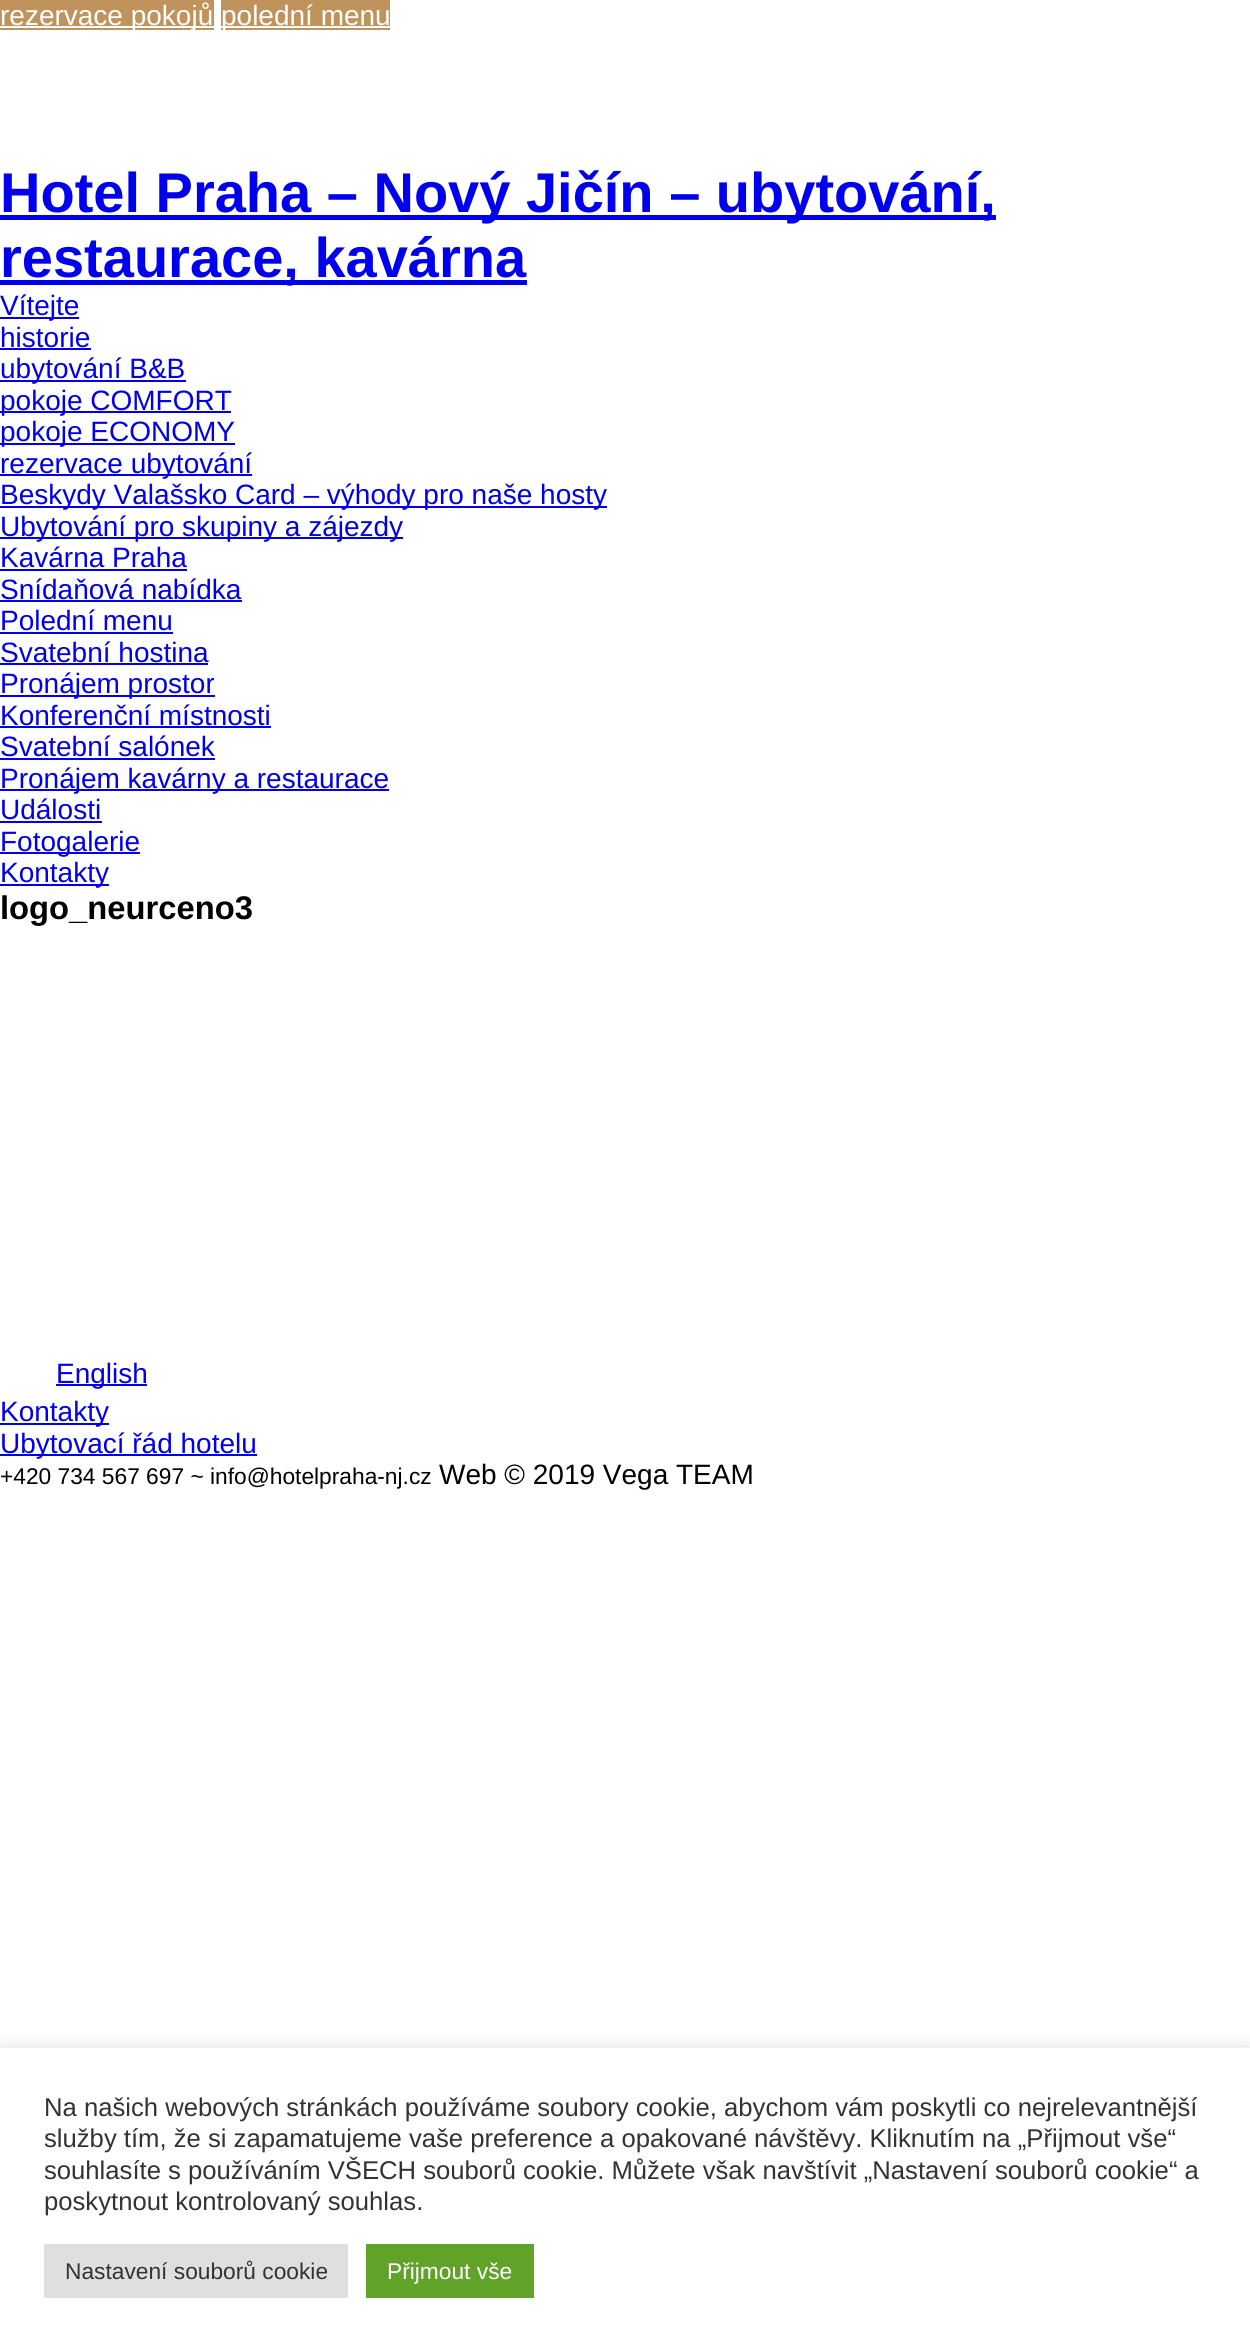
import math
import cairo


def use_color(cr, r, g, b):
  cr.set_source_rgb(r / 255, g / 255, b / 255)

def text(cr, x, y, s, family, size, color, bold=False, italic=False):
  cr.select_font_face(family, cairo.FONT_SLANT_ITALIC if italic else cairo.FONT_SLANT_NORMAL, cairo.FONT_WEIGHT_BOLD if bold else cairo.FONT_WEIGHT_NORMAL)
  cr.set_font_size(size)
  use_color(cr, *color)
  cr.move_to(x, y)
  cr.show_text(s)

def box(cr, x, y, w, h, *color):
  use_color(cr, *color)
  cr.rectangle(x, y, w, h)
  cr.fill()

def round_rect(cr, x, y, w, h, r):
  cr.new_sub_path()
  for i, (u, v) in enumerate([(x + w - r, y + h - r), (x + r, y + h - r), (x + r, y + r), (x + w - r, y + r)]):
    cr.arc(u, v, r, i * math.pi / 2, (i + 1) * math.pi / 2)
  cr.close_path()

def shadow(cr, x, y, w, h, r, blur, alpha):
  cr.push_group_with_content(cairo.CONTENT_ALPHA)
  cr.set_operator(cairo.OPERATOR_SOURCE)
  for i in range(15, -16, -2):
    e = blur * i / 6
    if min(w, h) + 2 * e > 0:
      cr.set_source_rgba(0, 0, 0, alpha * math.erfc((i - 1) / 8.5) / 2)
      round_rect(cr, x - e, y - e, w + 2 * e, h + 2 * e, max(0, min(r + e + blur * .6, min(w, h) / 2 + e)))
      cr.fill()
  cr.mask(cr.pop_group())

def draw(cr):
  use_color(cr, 255, 255, 255)
  cr.paint()
  box(cr, 0, 0, 214, 30, 193, 147, 92)
  box(cr, 0, 26, 214, 2, 255, 255, 255)
  box(cr, 221, 0, 169, 30, 193, 147, 92)
  box(cr, 221, 26, 169, 2, 255, 255, 255)
  box(cr, 0, 215, 996, 5, 0, 0, 238)
  box(cr, 0, 280, 527, 5, 0, 0, 238)
  box(cr, 0, 317, 79, 2, 0, 0, 238)
  box(cr, 0, 348, 91, 2, 0, 0, 238)
  box(cr, 0, 380, 186, 2, 0, 0, 238)
  box(cr, 0, 411, 231, 2, 0, 0, 238)
  box(cr, 0, 443, 235, 2, 0, 0, 238)
  box(cr, 0, 474, 252, 2, 0, 0, 238)
  box(cr, 0, 506, 607, 2, 0, 0, 238)
  box(cr, 0, 537, 403, 2, 0, 0, 238)
  box(cr, 0, 569, 187, 2, 0, 0, 238)
  box(cr, 0, 600, 242, 2, 0, 0, 238)
  box(cr, 0, 632, 173, 2, 0, 0, 238)
  box(cr, 0, 663, 208, 2, 0, 0, 238)
  box(cr, 0, 695, 215, 2, 0, 0, 238)
  box(cr, 0, 726, 271, 2, 0, 0, 238)
  box(cr, 0, 758, 215, 2, 0, 0, 238)
  box(cr, 0, 789, 389, 2, 0, 0, 238)
  box(cr, 0, 821, 102, 2, 0, 0, 238)
  box(cr, 0, 852, 140, 2, 0, 0, 238)
  box(cr, 0, 884, 109, 2, 0, 0, 238)
  box(cr, 56, 1384, 91, 2, 0, 0, 238)
  box(cr, 0, 1423, 109, 2, 0, 0, 238)
  box(cr, 0, 1454, 257, 2, 0, 0, 238)
  cr.save()
  cr.rectangle(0, 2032, 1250, 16)
  cr.clip()
  use_color(cr, 172, 171, 171)
  shadow(cr, 0, 2046, 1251, 303, 0, 9, 0.3)
  cr.restore()
  box(cr, 44, 2244, 304, 54, 222, 223, 224)
  box(cr, 366, 2244, 168, 54, 97, 162, 41)
  text(cr, 0, 25, "rezervace pokojů", "Liberation Sans", 28, (255, 255, 255))
  text(cr, 221, 25, "polední menu", "Liberation Sans", 28, (255, 255, 255))
  text(cr, 0, 212, "Hotel Praha – Nový Jičín – ubytování,", "Liberation Sans", 56, (0, 0, 238), bold=True)
  text(cr, 0, 277, "restaurace, kavárna", "Liberation Sans", 56, (0, 0, 238), bold=True)
  text(cr, 0, 315, "Vítejte", "Liberation Sans", 28, (0, 0, 238))
  text(cr, 0, 347, "historie", "Liberation Sans", 28, (0, 0, 238))
  text(cr, 0, 378, "ubytování B&B", "Liberation Sans", 28, (0, 0, 238))
  text(cr, 0, 410, "pokoje COMFORT", "Liberation Sans", 28, (0, 0, 238))
  text(cr, 0, 441, "pokoje ECONOMY", "Liberation Sans", 28, (0, 0, 238))
  text(cr, 0, 473, "rezervace ubytování", "Liberation Sans", 28, (0, 0, 238))
  text(cr, 0, 504, "Beskydy Valašsko Card – výhody pro naše hosty", "Liberation Sans", 28, (0, 0, 238))
  text(cr, 0, 536, "Ubytování pro skupiny a zájezdy", "Liberation Sans", 28, (0, 0, 238))
  text(cr, 0, 567, "Kavárna Praha", "Liberation Sans", 28, (0, 0, 238))
  text(cr, 0, 599, "Snídaňová nabídka", "Liberation Sans", 28, (0, 0, 238))
  text(cr, 0, 630, "Polední menu", "Liberation Sans", 28, (0, 0, 238))
  text(cr, 0, 662, "Svatební hostina", "Liberation Sans", 28, (0, 0, 238))
  text(cr, 0, 693, "Pronájem prostor", "Liberation Sans", 28, (0, 0, 238))
  text(cr, 0, 725, "Konferenční místnosti", "Liberation Sans", 28, (0, 0, 238))
  text(cr, 0, 756, "Svatební salónek", "Liberation Sans", 28, (0, 0, 238))
  text(cr, 0, 788, "Pronájem kavárny a restaurace", "Liberation Sans", 28, (0, 0, 238))
  text(cr, 0, 819, "Události", "Liberation Sans", 28, (0, 0, 238))
  text(cr, 0, 851, "Fotogalerie", "Liberation Sans", 28, (0, 0, 238))
  text(cr, 0, 882, "Kontakty", "Liberation Sans", 28, (0, 0, 238))
  text(cr, 0, 919, "logo_neurceno3", "Liberation Sans", 32.75, (0, 0, 0), bold=True)
  text(cr, 56, 1383, "English", "Liberation Sans", 28, (0, 0, 238))
  text(cr, 0, 1421, "Kontakty", "Liberation Sans", 28, (0, 0, 238))
  text(cr, 0, 1453, "Ubytovací řád hotelu", "Liberation Sans", 28, (0, 0, 238))
  text(cr, 0, 1484, "+420 734 567 697 ~ info@hotelpraha-nj.cz", "Liberation Sans", 22.75, (0, 0, 0))
  text(cr, 439, 1484, "Web © 2019 Vega TEAM", "Liberation Sans", 28, (0, 0, 0))
  text(cr, 44, 2116, "Na našich webových stránkách používáme soubory cookie, abychom vám poskytli co nejrelevantnější", "Liberation Sans", 25.65, (51, 51, 51))
  text(cr, 44, 2147, "služby tím, že si zapamatujeme vaše preference a opakované návštěvy. Kliknutím na „Přijmout vše“", "Liberation Sans", 25.65, (51, 51, 51))
  text(cr, 44, 2179, "souhlasíte s používáním VŠECH souborů cookie. Můžete však navštívit „Nastavení souborů cookie“ a", "Liberation Sans", 25.65, (51, 51, 51))
  text(cr, 44, 2210, "poskytnout kontrolovaný souhlas.", "Liberation Sans", 25.65, (51, 51, 51))
  text(cr, 65, 2279, "Nastavení souborů cookie", "Liberation Sans", 22.75, (51, 51, 51))
  text(cr, 387, 2279, "Přijmout vše", "Liberation Sans", 22.75, (255, 255, 255))


surface = cairo.ImageSurface(cairo.FORMAT_RGB24, 1250, 2350)
cr = cairo.Context(surface)
options = cairo.FontOptions()
options.set_hint_metrics(cairo.HINT_METRICS_OFF)
options.set_hint_style(cairo.HINT_STYLE_NONE)
cr.set_font_options(options)
cr.set_miter_limit(4)
draw(cr)
surface.write_to_png("out.png")
